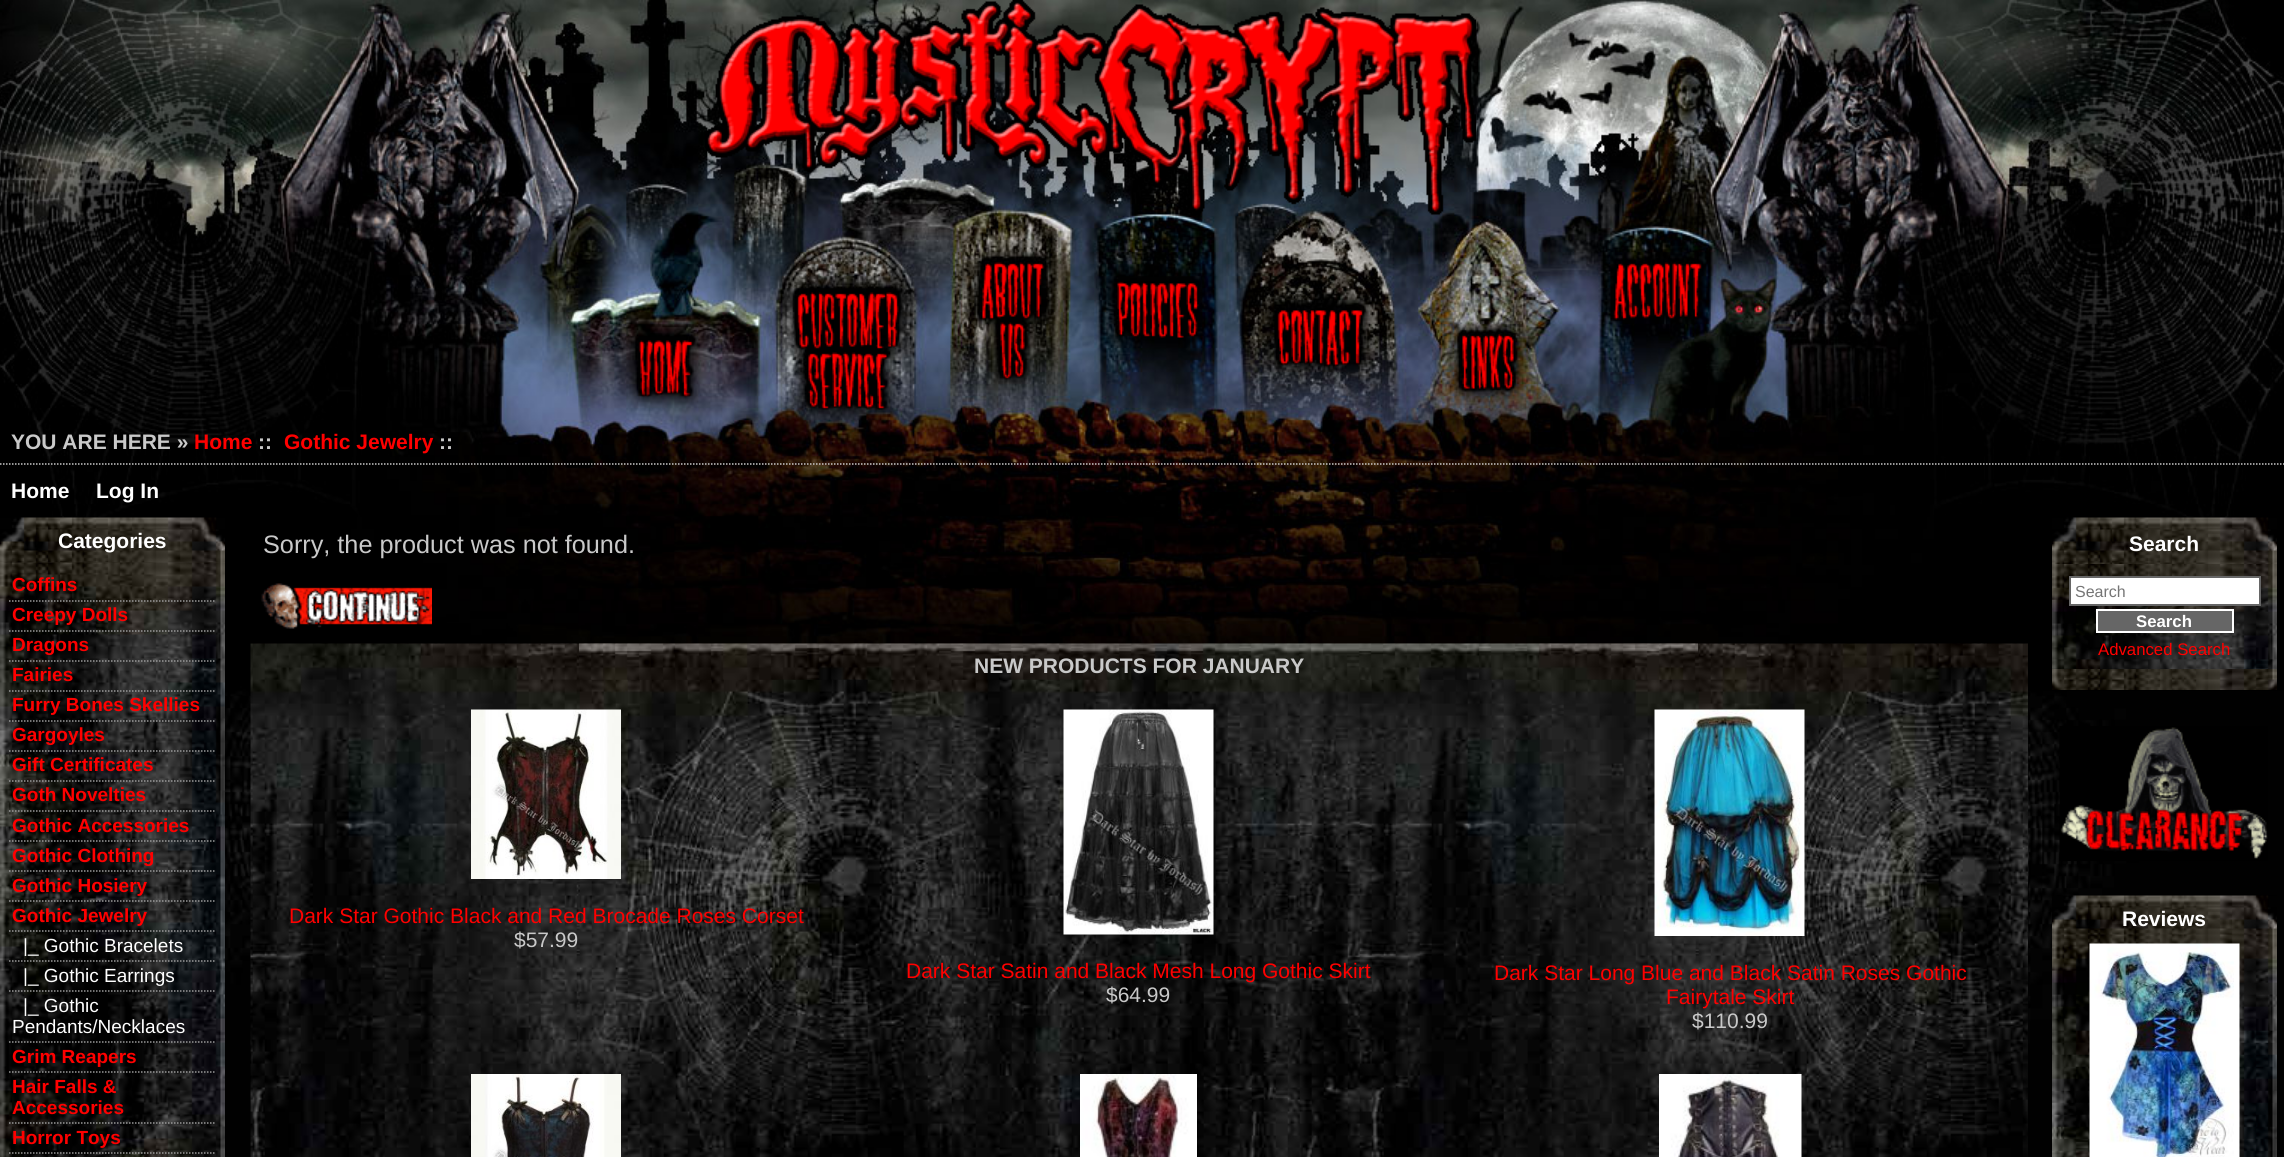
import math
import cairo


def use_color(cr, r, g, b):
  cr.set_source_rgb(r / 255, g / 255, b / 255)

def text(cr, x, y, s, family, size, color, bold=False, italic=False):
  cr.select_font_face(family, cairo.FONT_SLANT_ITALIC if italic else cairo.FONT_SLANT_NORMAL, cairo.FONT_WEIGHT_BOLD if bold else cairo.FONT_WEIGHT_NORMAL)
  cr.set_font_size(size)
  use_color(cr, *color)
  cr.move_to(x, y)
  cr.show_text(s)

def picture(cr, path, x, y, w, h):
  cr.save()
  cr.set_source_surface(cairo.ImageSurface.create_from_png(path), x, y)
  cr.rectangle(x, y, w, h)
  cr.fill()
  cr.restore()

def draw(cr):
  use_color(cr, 255, 255, 255)
  cr.paint()
  picture(cr, "img_01.png", 0, 0, 2284, 1157)
  picture(cr, "img_02.png", 705, 0, 771, 215)
  picture(cr, "img_03.png", 638, 340, 56, 57)
  picture(cr, "img_04.png", 797, 292, 102, 117)
  picture(cr, "img_05.png", 982, 262, 63, 117)
  picture(cr, "img_06.png", 1117, 281, 82, 57)
  picture(cr, "img_07.png", 1277, 310, 86, 57)
  picture(cr, "img_08.png", 1462, 334, 52, 55)
  picture(cr, "img_09.png", 1613, 262, 89, 58)
  cr.new_path()
  cr.move_to(0, 464)
  cr.line_to(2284.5, 464)
  use_color(cr, 201, 201, 201)
  cr.set_line_width(1.5)
  cr.set_dash([1.5, 1.5])
  cr.stroke()
  picture(cr, "img_10.png", 0, 517, 225, 46)
  picture(cr, "img_11.png", 0, 562, 225, 595)
  cr.new_path()
  cr.move_to(9, 601)
  cr.line_to(216, 601)
  use_color(cr, 153, 153, 153)
  cr.stroke()
  cr.new_path()
  cr.move_to(9, 631)
  cr.line_to(216, 631)
  cr.stroke()
  cr.new_path()
  cr.move_to(9, 661)
  cr.line_to(216, 661)
  cr.stroke()
  cr.new_path()
  cr.move_to(9, 691)
  cr.line_to(216, 691)
  cr.stroke()
  cr.new_path()
  cr.move_to(9, 721)
  cr.line_to(216, 721)
  cr.stroke()
  cr.new_path()
  cr.move_to(9, 751)
  cr.line_to(216, 751)
  cr.stroke()
  cr.new_path()
  cr.move_to(9, 781)
  cr.line_to(216, 781)
  cr.stroke()
  cr.new_path()
  cr.move_to(9, 811)
  cr.line_to(216, 811)
  cr.stroke()
  cr.new_path()
  cr.move_to(9, 841)
  cr.line_to(216, 841)
  cr.stroke()
  cr.new_path()
  cr.move_to(9, 871)
  cr.line_to(216, 871)
  cr.stroke()
  cr.new_path()
  cr.move_to(9, 901)
  cr.line_to(216, 901)
  cr.stroke()
  cr.new_path()
  cr.move_to(9, 931)
  cr.line_to(216, 931)
  cr.stroke()
  cr.new_path()
  cr.move_to(9, 961)
  cr.line_to(216, 961)
  cr.stroke()
  cr.new_path()
  cr.move_to(9, 991)
  cr.line_to(216, 991)
  cr.stroke()
  cr.new_path()
  cr.move_to(9, 1042)
  cr.line_to(216, 1042)
  cr.stroke()
  cr.new_path()
  cr.move_to(9, 1072)
  cr.line_to(216, 1072)
  cr.stroke()
  cr.new_path()
  cr.move_to(9, 1123)
  cr.line_to(216, 1123)
  cr.stroke()
  cr.new_path()
  cr.move_to(9, 1153)
  cr.line_to(216, 1153)
  cr.stroke()
  picture(cr, "img_12.png", 261, 583, 171, 46)
  picture(cr, "img_13.png", 250, 643, 1778, 514)
  picture(cr, "img_14.png", 579, 643, 1119, 37)
  picture(cr, "img_15.png", 471, 709, 150, 170)
  picture(cr, "img_16.png", 1063, 709, 151, 226)
  picture(cr, "img_17.png", 1654, 709, 151, 227)
  picture(cr, "img_18.png", 471, 1074, 150, 83)
  picture(cr, "img_19.png", 1080, 1074, 117, 83)
  picture(cr, "img_20.png", 1659, 1074, 143, 83)
  picture(cr, "img_21.png", 2052, 517, 225, 47)
  picture(cr, "img_22.png", 2052, 564, 225, 105)
  use_color(cr, 255, 255, 255)
  cr.rectangle(2070, 577, 190, 28)
  cr.fill_preserve()
  use_color(cr, 102, 102, 102)
  cr.set_line_width(2)
  cr.set_dash([])
  cr.stroke()
  cr.rectangle(2097, 610, 136, 22)
  cr.fill_preserve()
  use_color(cr, 255, 255, 255)
  cr.stroke()
  picture(cr, "img_23.png", 2052, 669, 225, 21)
  picture(cr, "img_24.png", 2059, 726, 209, 135)
  picture(cr, "img_25.png", 2052, 895, 225, 40)
  picture(cr, "img_26.png", 2052, 934, 225, 223)
  picture(cr, "img_27.png", 2089, 943, 151, 214)
  text(cr, 11, 449, "YOU ARE HERE »", "Liberation Sans", 21, (201, 201, 201), bold=True)
  text(cr, 194, 449, "Home", "Liberation Sans", 21, (255, 0, 0), bold=True)
  text(cr, 258, 449, "::", "Liberation Sans", 21, (201, 201, 201), bold=True)
  text(cr, 284, 449, "Gothic Jewelry", "Liberation Sans", 21, (255, 0, 0), bold=True)
  text(cr, 439, 449, "::", "Liberation Sans", 21, (201, 201, 201), bold=True)
  text(cr, 11, 498, "Home", "Liberation Sans", 21, (255, 255, 255), bold=True)
  text(cr, 96, 498, "Log In", "Liberation Sans", 21, (255, 255, 255), bold=True)
  text(cr, 58, 548, "Categories", "Liberation Sans", 21, (255, 255, 255), bold=True)
  text(cr, 12, 591, "Coffins", "Liberation Sans", 19, (255, 0, 0), bold=True)
  text(cr, 12, 621, "Creepy Dolls", "Liberation Sans", 19, (255, 0, 0), bold=True)
  text(cr, 12, 651, "Dragons", "Liberation Sans", 19, (255, 0, 0), bold=True)
  text(cr, 12, 681, "Fairies", "Liberation Sans", 19, (255, 0, 0), bold=True)
  text(cr, 12, 711, "Furry Bones Skellies", "Liberation Sans", 19, (255, 0, 0), bold=True)
  text(cr, 12, 741, "Gargoyles", "Liberation Sans", 19, (255, 0, 0), bold=True)
  text(cr, 12, 771, "Gift Certificates", "Liberation Sans", 19, (255, 0, 0), bold=True)
  text(cr, 12, 801, "Goth Novelties", "Liberation Sans", 19, (255, 0, 0), bold=True)
  text(cr, 12, 832, "Gothic Accessories", "Liberation Sans", 19, (255, 0, 0), bold=True)
  text(cr, 12, 862, "Gothic Clothing", "Liberation Sans", 19, (255, 0, 0), bold=True)
  text(cr, 12, 892, "Gothic Hosiery", "Liberation Sans", 19, (255, 0, 0), bold=True)
  text(cr, 12, 922, "Gothic Jewelry", "Liberation Sans", 19, (255, 0, 0), bold=True)
  text(cr, 23, 952, "|_ Gothic Bracelets", "Liberation Sans", 19, (255, 255, 255))
  text(cr, 23, 982, "|_ Gothic Earrings", "Liberation Sans", 19, (255, 255, 255))
  text(cr, 23, 1012, "|_ Gothic", "Liberation Sans", 19, (255, 255, 255))
  text(cr, 12, 1033, "Pendants/Necklaces", "Liberation Sans", 19, (255, 255, 255))
  text(cr, 12, 1063, "Grim Reapers", "Liberation Sans", 19, (255, 0, 0), bold=True)
  text(cr, 12, 1093, "Hair Falls &", "Liberation Sans", 19, (255, 0, 0), bold=True)
  text(cr, 12, 1114, "Accessories", "Liberation Sans", 19, (255, 0, 0), bold=True)
  text(cr, 12, 1144, "Horror Toys", "Liberation Sans", 19, (255, 0, 0), bold=True)
  text(cr, 263, 553, "Sorry, the product was not found.", "Liberation Sans", 25.25, (201, 201, 201))
  text(cr, 974, 673, "NEW PRODUCTS FOR JANUARY", "Liberation Sans", 21, (201, 201, 201), bold=True)
  text(cr, 289, 923, "Dark Star Gothic Black and Red Brocade Roses Corset", "Liberation Sans", 21, (255, 0, 0))
  text(cr, 514, 947, "$57.99", "Liberation Sans", 21, (201, 201, 201))
  text(cr, 906, 978, "Dark Star Satin and Black Mesh Long Gothic Skirt", "Liberation Sans", 21, (255, 0, 0))
  text(cr, 1106, 1002, "$64.99", "Liberation Sans", 21, (201, 201, 201))
  text(cr, 1494, 980, "Dark Star Long Blue and Black Satin Roses Gothic", "Liberation Sans", 21, (255, 0, 0))
  text(cr, 1666, 1004, "Fairytale Skirt", "Liberation Sans", 21, (255, 0, 0))
  text(cr, 1692, 1028, "$110.99", "Liberation Sans", 21, (201, 201, 201))
  text(cr, 2129, 551, "Search", "Liberation Sans", 21, (255, 255, 255), bold=True)
  text(cr, 2075, 597, "Search", "Liberation Sans", 16, (117, 117, 117))
  text(cr, 2136, 627, "Search", "Liberation Sans", 16.75, (255, 255, 255), bold=True)
  text(cr, 2098, 655, "Advanced Search", "Liberation Sans", 16.75, (255, 0, 0))
  text(cr, 2122, 926, "Reviews", "Liberation Sans", 21, (255, 255, 255), bold=True)


surface = cairo.ImageSurface(cairo.FORMAT_RGB24, 2284, 1157)
cr = cairo.Context(surface)
options = cairo.FontOptions()
options.set_hint_metrics(cairo.HINT_METRICS_OFF)
options.set_hint_style(cairo.HINT_STYLE_NONE)
cr.set_font_options(options)
cr.set_miter_limit(4)
draw(cr)
surface.write_to_png("out.png")
